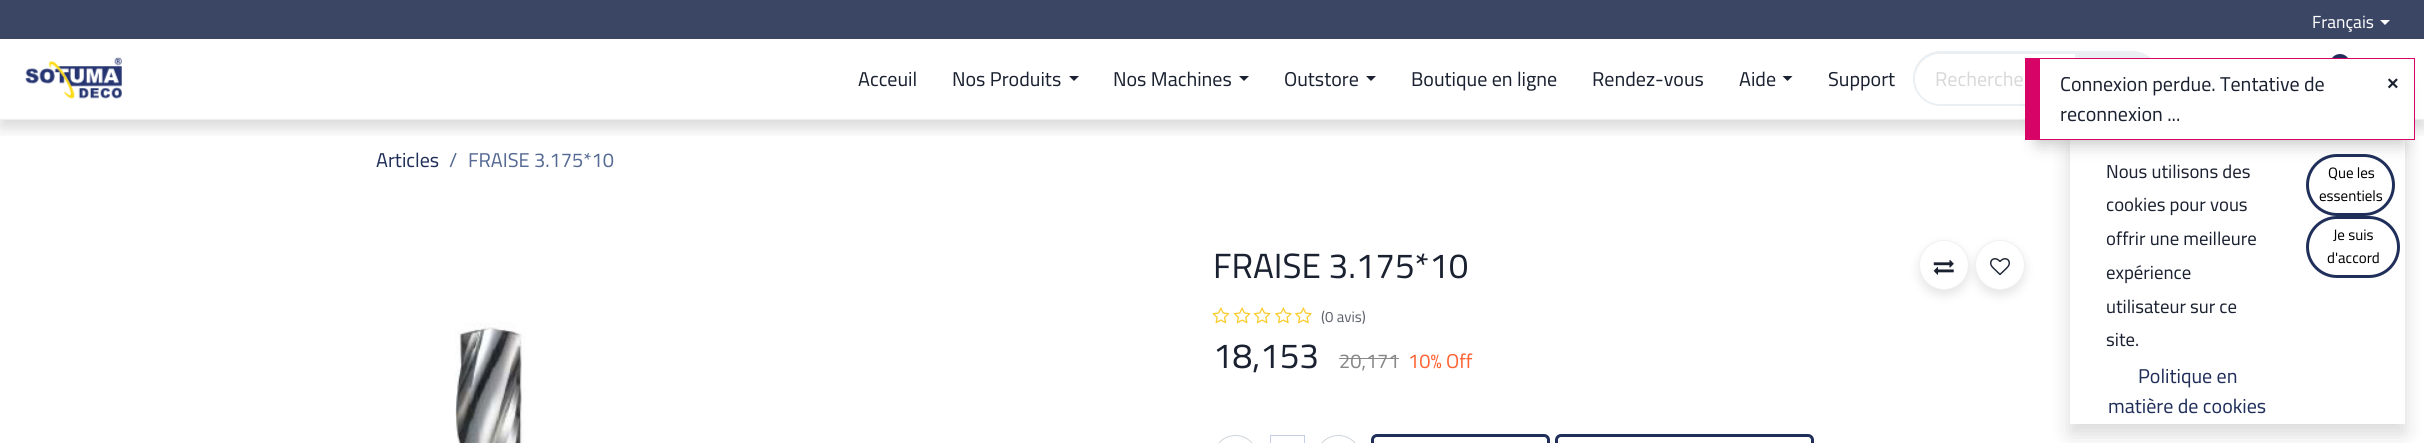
import math
import cairo


def use_color(cr, r, g, b):
  cr.set_source_rgb(r / 255, g / 255, b / 255)

def text(cr, x, y, s, family, size, color, bold=False, italic=False):
  cr.select_font_face(family, cairo.FONT_SLANT_ITALIC if italic else cairo.FONT_SLANT_NORMAL, cairo.FONT_WEIGHT_BOLD if bold else cairo.FONT_WEIGHT_NORMAL)
  cr.set_font_size(size)
  use_color(cr, *color)
  cr.move_to(x, y)
  cr.show_text(s)

def box(cr, x, y, w, h, *color):
  use_color(cr, *color)
  cr.rectangle(x, y, w, h)
  cr.fill()

def round_rect(cr, x, y, w, h, r):
  cr.new_sub_path()
  for i, (u, v) in enumerate([(x + w - r, y + h - r), (x + r, y + h - r), (x + r, y + r), (x + w - r, y + r)]):
    cr.arc(u, v, r, i * math.pi / 2, (i + 1) * math.pi / 2)
  cr.close_path()

def shadow(cr, x, y, w, h, r, blur, alpha):
  cr.push_group_with_content(cairo.CONTENT_ALPHA)
  cr.set_operator(cairo.OPERATOR_SOURCE)
  for i in range(15, -16, -2):
    e = blur * i / 6
    if min(w, h) + 2 * e > 0:
      cr.set_source_rgba(0, 0, 0, alpha * math.erfc((i - 1) / 8.5) / 2)
      round_rect(cr, x - e, y - e, w + 2 * e, h + 2 * e, max(0, min(r + e + blur * .6, min(w, h) / 2 + e)))
      cr.fill()
  cr.mask(cr.pop_group())

def picture(cr, path, x, y, w, h):
  cr.save()
  cr.set_source_surface(cairo.ImageSurface.create_from_png(path), x, y)
  cr.rectangle(x, y, w, h)
  cr.fill()
  cr.restore()

def draw(cr):
  use_color(cr, 255, 255, 255)
  cr.paint()
  cr.save()
  cr.rectangle(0, 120, 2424, 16)
  cr.clip()
  use_color(cr, 0, 0, 0)
  shadow(cr, 0, 8, 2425, 120, 0, 7.5, 0.15)
  cr.restore()
  box(cr, 0, 0, 2424, 39, 59, 70, 100)
  use_color(cr, 255, 255, 255)
  cr.new_path()
  cr.move_to(2380, 20)
  cr.line_to(2390, 20)
  cr.line_to(2385, 25)
  cr.close_path()
  cr.fill()
  box(cr, 0, 119, 2424, 1, 238, 238, 238)
  picture(cr, "img_01.png", 25, 57, 97, 42)
  use_color(cr, 26, 33, 48)
  cr.new_path()
  cr.move_to(1069, 76)
  cr.line_to(1079, 76)
  cr.line_to(1074, 81)
  cr.close_path()
  cr.fill()
  cr.new_path()
  cr.move_to(1239, 76)
  cr.line_to(1249, 76)
  cr.line_to(1244, 81)
  cr.close_path()
  cr.fill()
  cr.new_path()
  cr.move_to(1366, 76)
  cr.line_to(1376, 76)
  cr.line_to(1371, 81)
  cr.close_path()
  cr.fill()
  cr.new_path()
  cr.move_to(1782.5, 76)
  cr.line_to(1792.5, 76)
  cr.line_to(1787.5, 81)
  cr.close_path()
  cr.fill()
  round_rect(cr, 1914.5, 52.5, 244, 52, 26)
  use_color(cr, 234, 239, 243)
  cr.set_line_width(3)
  cr.stroke()
  use_color(cr, 255, 255, 255)
  round_rect(cr, 1915, 54, 243, 50, 25)
  cr.fill()
  use_color(cr, 234, 239, 243)
  cr.new_path()
  cr.move_to(2075, 54)
  cr.line_to(2135, 54)
  cr.curve_to(2149, 54, 2160, 65, 2160, 79)
  cr.curve_to(2160, 93, 2149, 104, 2135, 104)
  cr.line_to(2075, 104)
  cr.close_path()
  cr.fill()
  use_color(cr, 32, 47, 90)
  cr.arc(2340, 64, 10, 0, 2 * math.pi)
  cr.fill()
  picture(cr, "img_02.png", 455, 322, 70, 121)
  picture(cr, "img_03.png", 1212, 307, 18, 17)
  picture(cr, "img_04.png", 1233, 307, 18, 17)
  picture(cr, "img_04.png", 1253, 307, 18, 17)
  picture(cr, "img_05.png", 1275, 307, 17, 17)
  picture(cr, "img_05.png", 1295, 307, 17, 17)
  use_color(cr, 0, 0, 0)
  shadow(cr, 1919, 245, 50, 50, 25, 5, 0.1)
  use_color(cr, 255, 255, 255)
  cr.arc(1944, 265, 24.5, 0, 2 * math.pi)
  cr.fill_preserve()
  use_color(cr, 240, 240, 240)
  cr.set_line_width(1)
  cr.stroke()
  picture(cr, "img_06.png", 1933, 259, 21, 16)
  use_color(cr, 0, 0, 0)
  shadow(cr, 1975, 245, 50, 50, 25, 5, 0.1)
  use_color(cr, 255, 255, 255)
  cr.arc(2000, 265, 24.5, 0, 2 * math.pi)
  cr.fill_preserve()
  use_color(cr, 240, 240, 240)
  cr.stroke()
  picture(cr, "img_07.png", 1990, 258, 20, 18)
  box(cr, 1339, 358, 60, 1, 136, 136, 136)
  round_rect(cr, 1213.5, 435.5, 44, 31, 22)
  use_color(cr, 206, 212, 218)
  cr.stroke()
  cr.rectangle(1270.5, 435.5, 34, 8)
  use_color(cr, 197, 207, 227)
  cr.stroke()
  round_rect(cr, 1316.5, 435.5, 44, 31, 22)
  use_color(cr, 206, 212, 218)
  cr.stroke()
  round_rect(cr, 1372.5, 435.5, 176, 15, 4.5)
  use_color(cr, 32, 47, 90)
  cr.set_line_width(3)
  cr.stroke()
  round_rect(cr, 1556.5, 435.5, 256, 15, 4.5)
  cr.stroke()
  use_color(cr, 0, 0, 0)
  shadow(cr, 2070, 144, 335, 290, 0, 10, 0.15)
  box(cr, 2070, 140, 335, 284, 255, 255, 255)
  round_rect(cr, 2307.5, 155.5, 86, 59, 29.5)
  use_color(cr, 32, 47, 90)
  cr.stroke()
  round_rect(cr, 2307.5, 217.5, 91, 59, 29.5)
  cr.stroke()
  use_color(cr, 0, 0, 0)
  shadow(cr, 2038, 85, 365, 58, 0, 9, 0.25)
  box(cr, 2040, 59, 374, 80, 255, 255, 255)
  box(cr, 2040, 58, 375, 1, 216, 3, 103)
  box(cr, 2414, 58, 1, 82, 216, 3, 103)
  box(cr, 2040, 139, 375, 1, 216, 3, 103)
  box(cr, 2025, 58, 15, 82, 216, 3, 103)
  text(cr, 2312, 28, "Français", "Cairo", 17.5, (255, 255, 255))
  text(cr, 858, 86, "Acceuil", "Cairo", 20, (26, 33, 48))
  text(cr, 952, 86, "Nos Produits", "Cairo", 20, (26, 33, 48))
  text(cr, 1113, 86, "Nos Machines", "Cairo", 20, (26, 33, 48))
  text(cr, 1284, 86, "Outstore", "Cairo", 20, (26, 33, 48))
  text(cr, 1411, 86, "Boutique en ligne", "Cairo", 20, (26, 33, 48))
  text(cr, 1592, 86, "Rendez-vous", "Cairo", 20, (26, 33, 48))
  text(cr, 1739, 86, "Aide", "Cairo", 20, (26, 33, 48))
  text(cr, 1828, 86, "Support", "Cairo", 20, (26, 33, 48))
  text(cr, 1935, 86, "Recherche", "Cairo", 20, (216, 216, 216))
  text(cr, 376, 167, "Articles", "Cairo", 20, (32, 47, 90))
  text(cr, 449, 167, "/", "Cairo", 20, (85, 106, 148))
  text(cr, 468, 167, "FRAISE 3.175*10", "Cairo", 20, (85, 106, 148))
  text(cr, 1213, 278, "FRAISE 3.175*10", "Cairo", 35, (26, 33, 48))
  text(cr, 1321, 322, "(0 avis)", "Cairo", 15, (95, 100, 110))
  text(cr, 1213, 368, "18,153", "Cairo", 35, (26, 33, 48))
  text(cr, 1339, 368, "20,171", "Cairo", 20, (136, 136, 136))
  text(cr, 1408, 368, "10% Off", "Cairo", 20, (255, 100, 53))
  text(cr, 2106, 178, "Nous utilisons des", "Cairo", 18.75, (26, 33, 48))
  text(cr, 2106, 211, "cookies pour vous", "Cairo", 18.75, (26, 33, 48))
  text(cr, 2106, 245, "offrir une meilleure", "Cairo", 18.75, (26, 33, 48))
  text(cr, 2106, 279, "expérience", "Cairo", 18.75, (26, 33, 48))
  text(cr, 2106, 313, "utilisateur sur ce", "Cairo", 18.75, (26, 33, 48))
  text(cr, 2106, 346, "site.", "Cairo", 18.75, (26, 33, 48))
  text(cr, 2138, 383, "Politique en", "Cairo", 20, (32, 47, 90))
  text(cr, 2108, 413, "matière de cookies", "Cairo", 20, (32, 47, 90))
  text(cr, 2328, 178, "Que les", "Cairo", 15, (0, 0, 0))
  text(cr, 2319, 201, "essentiels", "Cairo", 15, (0, 0, 0))
  text(cr, 2333, 240, "Je suis", "Cairo", 15, (0, 0, 0))
  text(cr, 2327, 263, "d'accord", "Cairo", 15, (0, 0, 0))
  text(cr, 2060, 91, "Connexion perdue. Tentative de", "Cairo", 20, (26, 33, 48))
  text(cr, 2060, 121, "reconnexion ...", "Cairo", 20, (26, 33, 48))
  text(cr, 2387, 90, "×", "Liberation Sans", 20, (26, 33, 48), bold=True)


surface = cairo.ImageSurface(cairo.FORMAT_RGB24, 2424, 443)
cr = cairo.Context(surface)
options = cairo.FontOptions()
options.set_hint_metrics(cairo.HINT_METRICS_OFF)
options.set_hint_style(cairo.HINT_STYLE_NONE)
cr.set_font_options(options)
cr.set_miter_limit(4)
draw(cr)
surface.write_to_png("out.png")
